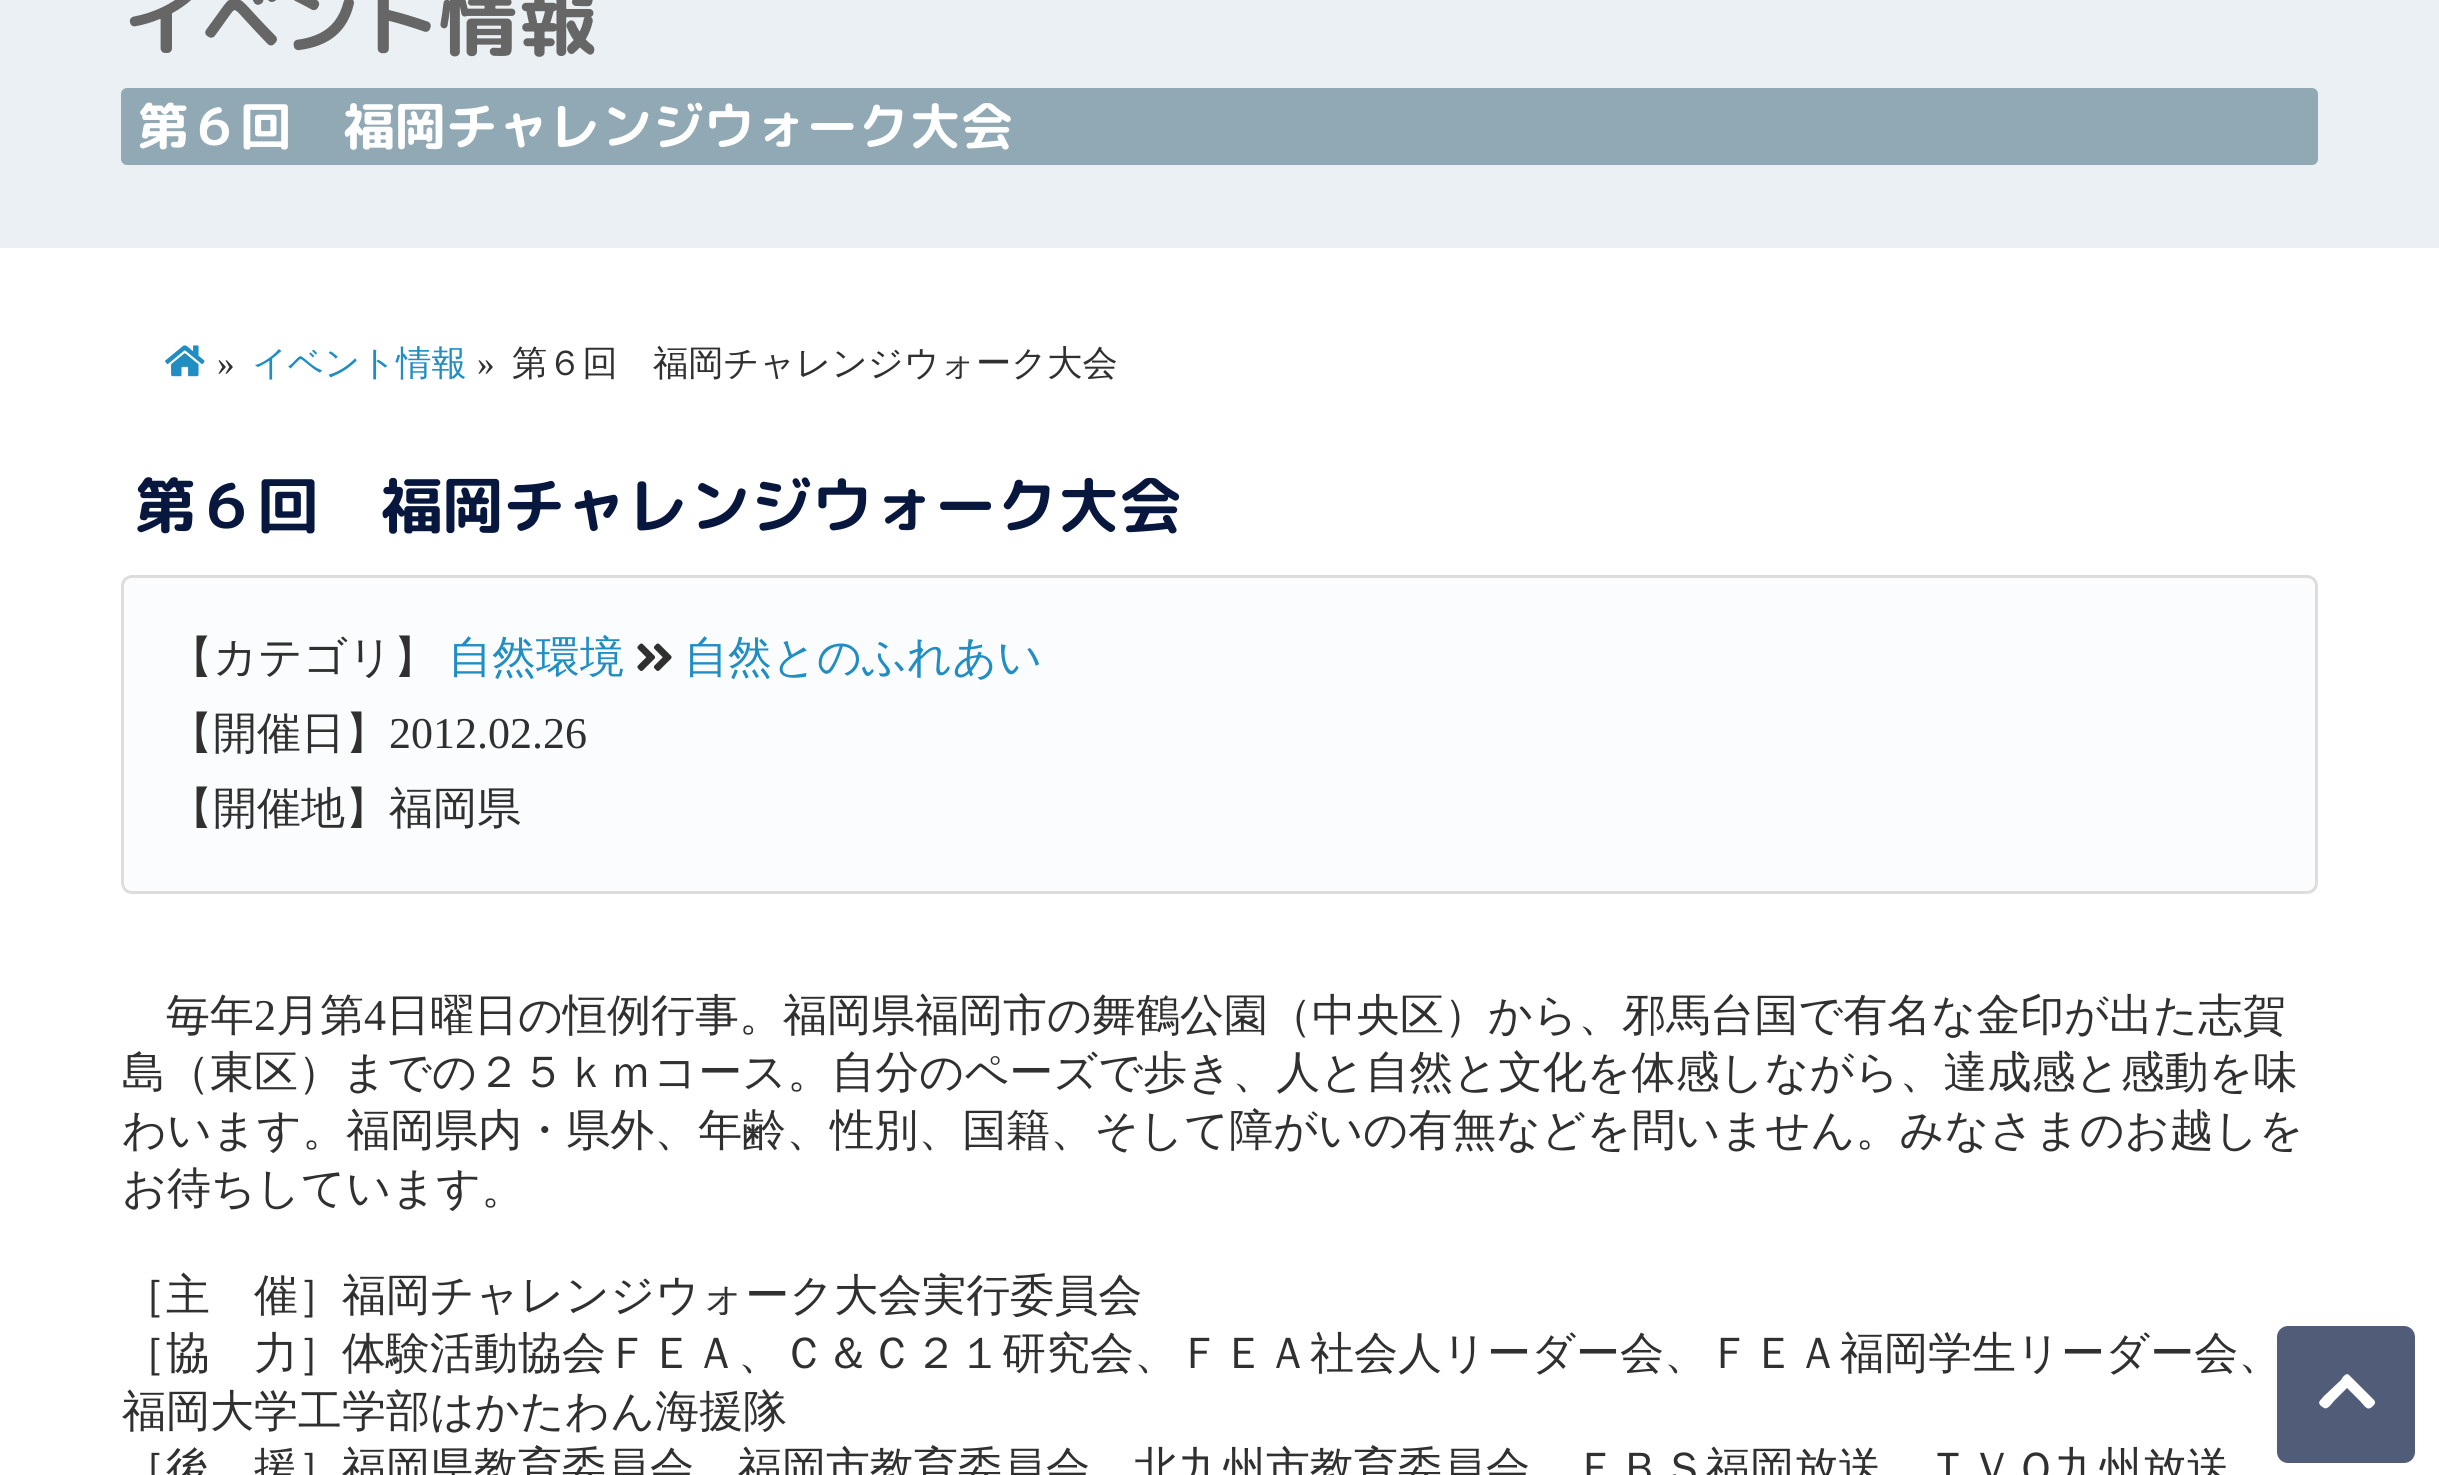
import math
import cairo


def use_color(cr, r, g, b):
  cr.set_source_rgb(r / 255, g / 255, b / 255)

def text(cr, x, y, s, family, size, color, bold=False, italic=False):
  cr.select_font_face(family, cairo.FONT_SLANT_ITALIC if italic else cairo.FONT_SLANT_NORMAL, cairo.FONT_WEIGHT_BOLD if bold else cairo.FONT_WEIGHT_NORMAL)
  cr.set_font_size(size)
  use_color(cr, *color)
  cr.move_to(x, y)
  cr.show_text(s)

def box(cr, x, y, w, h, *color):
  use_color(cr, *color)
  cr.rectangle(x, y, w, h)
  cr.fill()

def round_rect(cr, x, y, w, h, r):
  cr.new_sub_path()
  for i, (u, v) in enumerate([(x + w - r, y + h - r), (x + r, y + h - r), (x + r, y + r), (x + w - r, y + r)]):
    cr.arc(u, v, r, i * math.pi / 2, (i + 1) * math.pi / 2)
  cr.close_path()

def picture(cr, path, x, y, w, h):
  cr.save()
  cr.set_source_surface(cairo.ImageSurface.create_from_png(path), x, y)
  cr.rectangle(x, y, w, h)
  cr.fill()
  cr.restore()

def draw(cr):
  use_color(cr, 255, 255, 255)
  cr.paint()
  box(cr, 0, 0, 2439, 248, 234, 240, 243)
  use_color(cr, 145, 169, 181)
  round_rect(cr, 121, 88, 2197, 77, 6)
  cr.fill()
  picture(cr, "img_01.png", 165, 345, 40, 32)
  use_color(cr, 251, 252, 253)
  round_rect(cr, 122.5, 576.5, 2194, 316, 9.5)
  cr.fill_preserve()
  use_color(cr, 221, 221, 221)
  cr.set_line_width(3)
  cr.stroke()
  picture(cr, "img_02.png", 637, 643, 35, 28)
  use_color(cr, 81, 93, 120)
  round_rect(cr, 2277, 1326, 138, 137, 11)
  cr.fill()
  use_color(cr, 255, 255, 255)
  cr.new_path()
  cr.move_to(2349, 1375)
  cr.line_to(2370, 1396)
  cr.curve_to(2375, 1401, 2377, 1402, 2373, 1406)
  cr.curve_to(2367, 1412, 2365, 1406, 2360, 1401)
  cr.line_to(2347, 1388)
  cr.line_to(2334, 1401)
  cr.curve_to(2332, 1403, 2328, 1410, 2324, 1408)
  cr.line_to(2321, 1406)
  cr.curve_to(2317, 1402, 2320, 1401, 2324, 1396)
  cr.line_to(2341, 1380)
  cr.curve_to(2342, 1378, 2346, 1372, 2349, 1375)
  cr.close_path()
  cr.fill()
  text(cr, 122, 49, "イベント情報", "Rounded Mplus 1c Bold", 79.25, (102, 102, 102), bold=True)
  text(cr, 137, 145, "第６回　福岡チャレンジウォーク大会", "Rounded Mplus 1c Bold", 51.5, (255, 255, 255), bold=True)
  text(cr, 217, 375, "»", "Liberation Serif", 35.25, (48, 48, 48))
  text(cr, 252, 375, "イベント情報", "WenQuanYi Zen Hei Medium", 35.25, (32, 141, 195))
  text(cr, 477, 375, "»", "Liberation Serif", 35.25, (48, 48, 48))
  text(cr, 512, 375, "第６回　福岡チャレンジウォーク大会", "WenQuanYi Zen Hei Medium", 35.25, (48, 48, 48))
  text(cr, 134, 528, "第６回　福岡チャレンジウォーク大会", "Rounded Mplus 1c Bold", 61.6, (7, 23, 62), bold=True)
  text(cr, 169, 672, "【カテゴリ】", "WenQuanYi Zen Hei Medium", 44, (48, 48, 48))
  text(cr, 448, 672, "自然環境", "WenQuanYi Zen Hei Medium", 44, (32, 141, 195))
  text(cr, 684, 672, "自然とのふれあい", "WenQuanYi Zen Hei Medium", 44, (32, 141, 195))
  text(cr, 169, 748, "【開催日】", "WenQuanYi Zen Hei Medium", 44, (48, 48, 48))
  text(cr, 389, 748, "2012.02.26", "Liberation Serif", 44, (48, 48, 48))
  text(cr, 169, 823, "【開催地】福岡県", "WenQuanYi Zen Hei Medium", 44, (48, 48, 48))
  text(cr, 166, 1030, "毎年", "WenQuanYi Zen Hei Medium", 44, (48, 48, 48))
  text(cr, 254, 1030, "2", "Liberation Serif", 44, (48, 48, 48))
  text(cr, 276, 1030, "月第", "WenQuanYi Zen Hei Medium", 44, (48, 48, 48))
  text(cr, 364, 1030, "4", "Liberation Serif", 44, (48, 48, 48))
  text(cr, 386, 1030, "日曜日の恒例行事。福岡県福岡市の舞鶴公園（中央区）から、邪馬台国で有名な金印が出た志賀", "WenQuanYi Zen Hei Medium", 44, (48, 48, 48))
  text(cr, 122, 1087, "島（東区）までの２５ｋｍコース。自分のペーズで歩き、人と自然と文化を体感しながら、達成感と感動を味", "WenQuanYi Zen Hei Medium", 44, (48, 48, 48))
  text(cr, 122, 1145, "わいます。福岡県内・県外、年齢、性別、国籍、そして障がいの有無などを問いません。みなさまのお越しを", "WenQuanYi Zen Hei Medium", 44, (48, 48, 48))
  text(cr, 122, 1203, "お待ちしています。", "WenQuanYi Zen Hei Medium", 44, (48, 48, 48))
  text(cr, 122, 1310, "［主　催］福岡チャレンジウォーク大会実行委員会", "WenQuanYi Zen Hei Medium", 44, (48, 48, 48))
  text(cr, 122, 1368, "［協　力］体験活動協会ＦＥＡ、Ｃ＆Ｃ２１研究会、ＦＥＡ社会人リーダー会、ＦＥＡ福岡学生リーダー会、", "WenQuanYi Zen Hei Medium", 44, (48, 48, 48))
  text(cr, 122, 1426, "福岡大学工学部はかたわん海援隊", "WenQuanYi Zen Hei Medium", 44, (48, 48, 48))
  text(cr, 122, 1483, "［後　援］福岡県教育委員会、福岡市教育委員会、北九州市教育委員会、ＦＢＳ福岡放送、ＴＶＱ九州放送", "WenQuanYi Zen Hei Medium", 44, (48, 48, 48))


surface = cairo.ImageSurface(cairo.FORMAT_RGB24, 2439, 1475)
cr = cairo.Context(surface)
options = cairo.FontOptions()
options.set_hint_metrics(cairo.HINT_METRICS_OFF)
options.set_hint_style(cairo.HINT_STYLE_NONE)
cr.set_font_options(options)
cr.set_miter_limit(4)
draw(cr)
surface.write_to_png("out.png")
